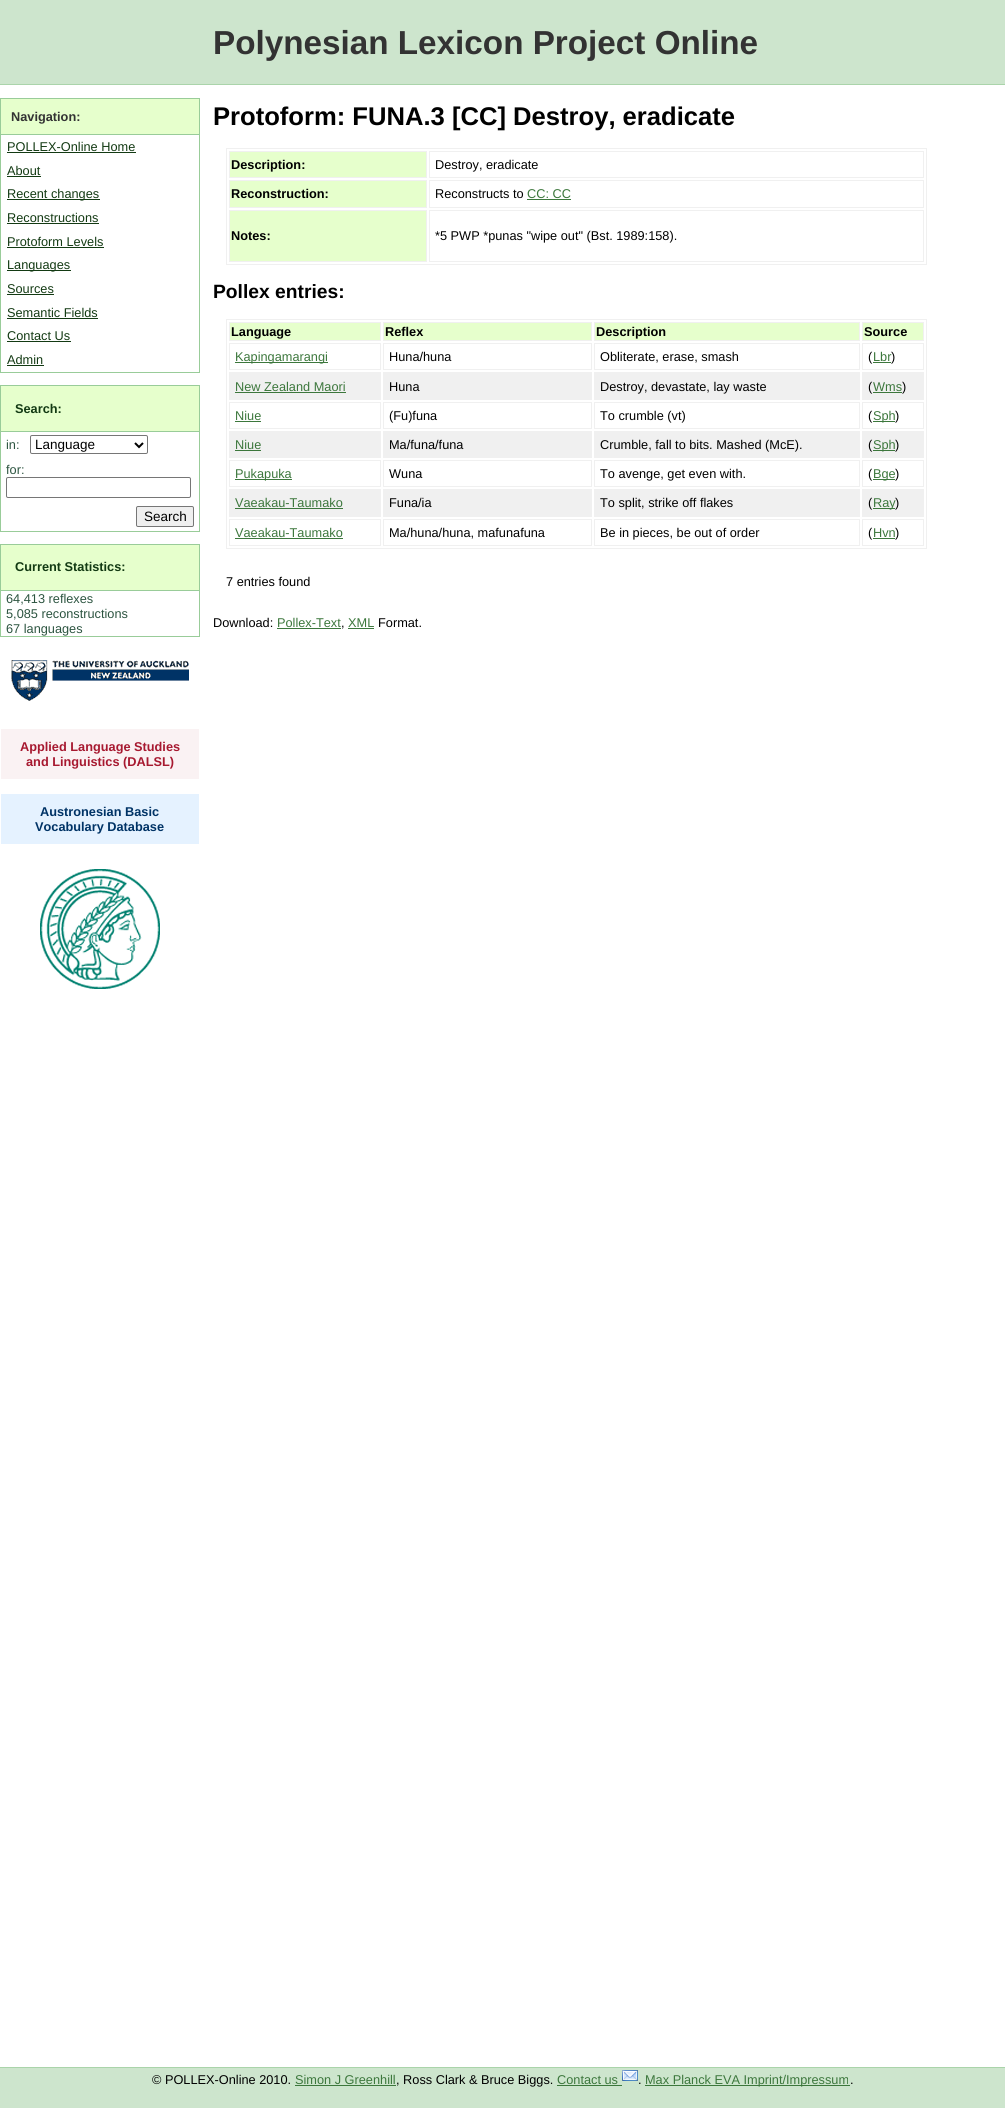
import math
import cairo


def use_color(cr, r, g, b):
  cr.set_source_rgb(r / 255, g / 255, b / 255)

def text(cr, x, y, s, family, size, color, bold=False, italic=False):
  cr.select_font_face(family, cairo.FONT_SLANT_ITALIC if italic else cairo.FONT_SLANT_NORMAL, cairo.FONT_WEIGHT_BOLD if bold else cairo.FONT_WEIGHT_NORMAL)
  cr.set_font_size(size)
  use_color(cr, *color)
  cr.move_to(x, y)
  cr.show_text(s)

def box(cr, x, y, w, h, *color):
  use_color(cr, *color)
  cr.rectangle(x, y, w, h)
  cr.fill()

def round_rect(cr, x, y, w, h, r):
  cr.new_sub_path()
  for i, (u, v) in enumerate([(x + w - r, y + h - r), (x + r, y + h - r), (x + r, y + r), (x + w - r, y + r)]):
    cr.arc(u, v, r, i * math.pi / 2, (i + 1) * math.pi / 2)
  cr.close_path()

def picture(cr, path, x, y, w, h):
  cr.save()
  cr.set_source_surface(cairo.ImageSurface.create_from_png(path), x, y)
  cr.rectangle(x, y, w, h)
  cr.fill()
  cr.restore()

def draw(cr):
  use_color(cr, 255, 255, 255)
  cr.paint()
  box(cr, 0, 0, 1005, 84, 205, 229, 205)
  box(cr, 0, 84, 1005, 1, 170, 212, 170)
  cr.rectangle(0.5, 98.5, 199, 274)
  use_color(cr, 153, 204, 153)
  cr.set_line_width(1)
  cr.stroke()
  box(cr, 1, 99, 198, 35, 230, 255, 204)
  box(cr, 1, 134, 198, 1, 153, 204, 153)
  box(cr, 7, 152, 129, 1, 19, 58, 19)
  box(cr, 7, 176, 34, 1, 19, 58, 19)
  box(cr, 7, 199, 93, 1, 19, 58, 19)
  box(cr, 7, 223, 92, 1, 19, 58, 19)
  box(cr, 7, 247, 97, 1, 19, 58, 19)
  box(cr, 7, 270, 64, 1, 19, 58, 19)
  box(cr, 7, 294, 47, 1, 19, 58, 19)
  box(cr, 7, 318, 91, 1, 19, 58, 19)
  box(cr, 7, 341, 64, 1, 19, 58, 19)
  box(cr, 7, 365, 37, 1, 19, 58, 19)
  cr.rectangle(0.5, 385.5, 199, 146)
  use_color(cr, 153, 204, 153)
  cr.stroke()
  box(cr, 1, 386, 198, 45, 230, 255, 204)
  box(cr, 1, 431, 198, 1, 153, 204, 153)
  round_rect(cr, 30.5, 435.5, 117, 18, 1.5)
  use_color(cr, 118, 118, 118)
  cr.stroke()
  cr.new_path()
  cr.move_to(135, 443)
  cr.line_to(139, 447)
  cr.line_to(143, 443)
  use_color(cr, 0, 0, 0)
  cr.set_line_width(2)
  cr.stroke()
  round_rect(cr, 6.5, 477.5, 184, 20, 1.5)
  use_color(cr, 118, 118, 118)
  cr.set_line_width(1)
  cr.stroke()
  use_color(cr, 239, 239, 239)
  round_rect(cr, 136.5, 506.5, 57, 20, 1.5)
  cr.fill_preserve()
  use_color(cr, 118, 118, 118)
  cr.stroke()
  cr.rectangle(0.5, 544.5, 199, 92)
  use_color(cr, 153, 204, 153)
  cr.stroke()
  box(cr, 1, 545, 198, 45, 230, 255, 204)
  box(cr, 1, 590, 198, 1, 153, 204, 153)
  picture(cr, "img_01.png", 11, 660, 178, 41)
  box(cr, 1, 729, 198, 50, 250, 242, 243)
  box(cr, 1, 794, 198, 50, 229, 242, 255)
  picture(cr, "img_02.png", 40, 869, 120, 120)
  cr.rectangle(226.5, 148.5, 700, 116)
  use_color(cr, 240, 240, 240)
  cr.stroke()
  use_color(cr, 230, 255, 204)
  cr.rectangle(229.5, 151.5, 197, 26)
  cr.fill_preserve()
  use_color(cr, 240, 240, 240)
  cr.stroke()
  cr.rectangle(429.5, 151.5, 494, 26)
  cr.stroke()
  use_color(cr, 230, 255, 204)
  cr.rectangle(229.5, 180.5, 197, 27)
  cr.fill_preserve()
  use_color(cr, 240, 240, 240)
  cr.stroke()
  cr.rectangle(429.5, 180.5, 494, 27)
  cr.stroke()
  box(cr, 527, 199, 44, 1, 60, 119, 60)
  use_color(cr, 230, 255, 204)
  cr.rectangle(229.5, 210.5, 197, 51)
  cr.fill_preserve()
  use_color(cr, 240, 240, 240)
  cr.stroke()
  cr.rectangle(429.5, 210.5, 494, 51)
  cr.stroke()
  cr.rectangle(226.5, 319.5, 700, 229)
  cr.stroke()
  use_color(cr, 230, 255, 204)
  cr.rectangle(229.5, 322.5, 151, 18)
  cr.fill_preserve()
  use_color(cr, 240, 240, 240)
  cr.stroke()
  use_color(cr, 230, 255, 204)
  cr.rectangle(383.5, 322.5, 208, 18)
  cr.fill_preserve()
  use_color(cr, 240, 240, 240)
  cr.stroke()
  use_color(cr, 230, 255, 204)
  cr.rectangle(594.5, 322.5, 265, 18)
  cr.fill_preserve()
  use_color(cr, 240, 240, 240)
  cr.stroke()
  use_color(cr, 230, 255, 204)
  cr.rectangle(862.5, 322.5, 61, 18)
  cr.fill_preserve()
  use_color(cr, 240, 240, 240)
  cr.stroke()
  cr.rectangle(229.5, 343.5, 151, 26)
  cr.stroke()
  box(cr, 235, 362, 93, 1, 60, 119, 60)
  cr.rectangle(383.5, 343.5, 208, 26)
  use_color(cr, 240, 240, 240)
  cr.stroke()
  cr.rectangle(594.5, 343.5, 265, 26)
  cr.stroke()
  cr.rectangle(862.5, 343.5, 61, 26)
  cr.stroke()
  box(cr, 873, 362, 18, 1, 60, 119, 60)
  box(cr, 229, 372, 152, 28, 240, 240, 240)
  box(cr, 235, 392, 111, 1, 60, 119, 60)
  box(cr, 383, 372, 209, 28, 240, 240, 240)
  box(cr, 594, 372, 266, 28, 240, 240, 240)
  box(cr, 862, 372, 62, 28, 240, 240, 240)
  box(cr, 873, 392, 29, 1, 60, 119, 60)
  cr.rectangle(229.5, 402.5, 151, 26)
  use_color(cr, 240, 240, 240)
  cr.stroke()
  box(cr, 235, 421, 26, 1, 60, 119, 60)
  cr.rectangle(383.5, 402.5, 208, 26)
  use_color(cr, 240, 240, 240)
  cr.stroke()
  cr.rectangle(594.5, 402.5, 265, 26)
  cr.stroke()
  cr.rectangle(862.5, 402.5, 61, 26)
  cr.stroke()
  box(cr, 873, 421, 22, 1, 60, 119, 60)
  box(cr, 229, 431, 152, 27, 240, 240, 240)
  box(cr, 235, 450, 26, 1, 60, 119, 60)
  box(cr, 383, 431, 209, 27, 240, 240, 240)
  box(cr, 594, 431, 266, 27, 240, 240, 240)
  box(cr, 862, 431, 62, 27, 240, 240, 240)
  box(cr, 873, 450, 22, 1, 60, 119, 60)
  cr.rectangle(229.5, 460.5, 151, 26)
  use_color(cr, 240, 240, 240)
  cr.stroke()
  box(cr, 235, 479, 57, 1, 60, 119, 60)
  cr.rectangle(383.5, 460.5, 208, 26)
  use_color(cr, 240, 240, 240)
  cr.stroke()
  cr.rectangle(594.5, 460.5, 265, 26)
  cr.stroke()
  cr.rectangle(862.5, 460.5, 61, 26)
  cr.stroke()
  box(cr, 873, 479, 22, 1, 60, 119, 60)
  box(cr, 229, 489, 152, 28, 240, 240, 240)
  box(cr, 235, 508, 108, 1, 60, 119, 60)
  box(cr, 383, 489, 209, 28, 240, 240, 240)
  box(cr, 594, 489, 266, 28, 240, 240, 240)
  box(cr, 862, 489, 62, 28, 240, 240, 240)
  box(cr, 873, 508, 22, 1, 60, 119, 60)
  cr.rectangle(229.5, 519.5, 151, 26)
  use_color(cr, 240, 240, 240)
  cr.stroke()
  box(cr, 235, 538, 108, 1, 60, 119, 60)
  cr.rectangle(383.5, 519.5, 208, 26)
  use_color(cr, 240, 240, 240)
  cr.stroke()
  cr.rectangle(594.5, 519.5, 265, 26)
  cr.stroke()
  cr.rectangle(862.5, 519.5, 61, 26)
  cr.stroke()
  box(cr, 873, 538, 22, 1, 60, 119, 60)
  box(cr, 277, 628, 64, 1, 60, 119, 60)
  box(cr, 348, 628, 26, 1, 60, 119, 60)
  box(cr, 0, 2068, 1005, 40, 205, 229, 205)
  box(cr, 0, 2067, 1005, 1, 170, 212, 170)
  box(cr, 295, 2085, 101, 1, 60, 119, 60)
  box(cr, 557, 2085, 65, 1, 60, 119, 60)
  picture(cr, "img_03.png", 622, 2070, 16, 11)
  box(cr, 645, 2085, 205, 1, 60, 119, 60)
  text(cr, 213, 54, "Polynesian Lexicon Project Online", "Liberation Sans", 33.25, (51, 51, 51), bold=True)
  text(cr, 11, 121, "Navigation:", "Liberation Sans", 12.75, (51, 51, 51), bold=True)
  text(cr, 7, 151, "POLLEX-Online Home", "Liberation Sans", 12.75, (19, 58, 19))
  text(cr, 7, 175, "About", "Liberation Sans", 12.75, (19, 58, 19))
  text(cr, 7, 198, "Recent changes", "Liberation Sans", 12.75, (19, 58, 19))
  text(cr, 7, 222, "Reconstructions", "Liberation Sans", 12.75, (19, 58, 19))
  text(cr, 7, 246, "Protoform Levels", "Liberation Sans", 12.75, (19, 58, 19))
  text(cr, 7, 269, "Languages", "Liberation Sans", 12.75, (19, 58, 19))
  text(cr, 7, 293, "Sources", "Liberation Sans", 12.75, (19, 58, 19))
  text(cr, 7, 317, "Semantic Fields", "Liberation Sans", 12.75, (19, 58, 19))
  text(cr, 7, 340, "Contact Us", "Liberation Sans", 12.75, (19, 58, 19))
  text(cr, 7, 364, "Admin", "Liberation Sans", 12.75, (19, 58, 19))
  text(cr, 15, 413, "Search:", "Liberation Sans", 12.75, (19, 58, 19), bold=True)
  text(cr, 6, 449, "in:", "Liberation Sans", 12.75, (44, 84, 64))
  text(cr, 35, 449, "Language", "Liberation Sans", 13.5, (0, 0, 0))
  text(cr, 6, 474, "for:", "Liberation Sans", 12.75, (44, 84, 64))
  text(cr, 144, 521, "Search", "Liberation Sans", 13.5, (0, 0, 0))
  text(cr, 15, 571, "Current Statistics:", "Liberation Sans", 12.75, (19, 58, 19), bold=True)
  text(cr, 6, 603, "64,413 reflexes", "Liberation Sans", 12.75, (44, 84, 64))
  text(cr, 6, 618, "5,085 reconstructions", "Liberation Sans", 12.75, (44, 84, 64))
  text(cr, 6, 633, "67 languages", "Liberation Sans", 12.75, (44, 84, 64))
  text(cr, 20, 751, "Applied Language Studies", "Liberation Sans", 12.75, (167, 25, 48), bold=True)
  text(cr, 26, 766, "and Linguistics (DALSL)", "Liberation Sans", 12.75, (167, 25, 48), bold=True)
  text(cr, 40, 816, "Austronesian Basic", "Liberation Sans", 12.75, (0, 51, 102), bold=True)
  text(cr, 35, 831, "Vocabulary Database", "Liberation Sans", 12.75, (0, 51, 102), bold=True)
  text(cr, 213, 125, "Protoform: FUNA.3 [CC] Destroy, eradicate", "Liberation Sans", 25.6, (0, 0, 0), bold=True)
  text(cr, 231, 169, "Description:", "Liberation Sans", 12.75, (0, 0, 0), bold=True)
  text(cr, 435, 169, "Destroy, eradicate", "Liberation Sans", 12.75, (0, 0, 0))
  text(cr, 231, 198, "Reconstruction:", "Liberation Sans", 12.75, (0, 0, 0), bold=True)
  text(cr, 435, 198, "Reconstructs to", "Liberation Sans", 12.75, (0, 0, 0))
  text(cr, 527, 198, "CC: CC", "Liberation Sans", 12.75, (60, 119, 60))
  text(cr, 231, 240, "Notes:", "Liberation Sans", 12.75, (0, 0, 0), bold=True)
  text(cr, 435, 240, "*5 PWP *punas \"wipe out\" (Bst. 1989:158).", "Liberation Sans", 12.75, (0, 0, 0))
  text(cr, 213, 298, "Pollex entries:", "Liberation Sans", 19.25, (0, 0, 0), bold=True)
  text(cr, 231, 336, "Language", "Liberation Sans", 12.75, (0, 0, 0), bold=True)
  text(cr, 385, 336, "Reflex", "Liberation Sans", 12.75, (0, 0, 0), bold=True)
  text(cr, 596, 336, "Description", "Liberation Sans", 12.75, (0, 0, 0), bold=True)
  text(cr, 864, 336, "Source", "Liberation Sans", 12.75, (0, 0, 0), bold=True)
  text(cr, 235, 361, "Kapingamarangi", "Liberation Sans", 12.75, (60, 119, 60))
  text(cr, 389, 361, "Huna/huna", "Liberation Sans", 12.75, (0, 0, 0))
  text(cr, 600, 361, "Obliterate, erase, smash", "Liberation Sans", 12.75, (0, 0, 0))
  text(cr, 868, 361, "(", "Liberation Sans", 12.75, (0, 0, 0))
  text(cr, 873, 361, "Lbr", "Liberation Sans", 12.75, (60, 119, 60))
  text(cr, 891, 361, ")", "Liberation Sans", 12.75, (0, 0, 0))
  text(cr, 235, 391, "New Zealand Maori", "Liberation Sans", 12.75, (60, 119, 60))
  text(cr, 389, 391, "Huna", "Liberation Sans", 12.75, (0, 0, 0))
  text(cr, 600, 391, "Destroy, devastate, lay waste", "Liberation Sans", 12.75, (0, 0, 0))
  text(cr, 868, 391, "(", "Liberation Sans", 12.75, (0, 0, 0))
  text(cr, 873, 391, "Wms", "Liberation Sans", 12.75, (60, 119, 60))
  text(cr, 902, 391, ")", "Liberation Sans", 12.75, (0, 0, 0))
  text(cr, 235, 420, "Niue", "Liberation Sans", 12.75, (60, 119, 60))
  text(cr, 389, 420, "(Fu)funa", "Liberation Sans", 12.75, (0, 0, 0))
  text(cr, 600, 420, "To crumble (vt)", "Liberation Sans", 12.75, (0, 0, 0))
  text(cr, 868, 420, "(", "Liberation Sans", 12.75, (0, 0, 0))
  text(cr, 873, 420, "Sph", "Liberation Sans", 12.75, (60, 119, 60))
  text(cr, 895, 420, ")", "Liberation Sans", 12.75, (0, 0, 0))
  text(cr, 235, 449, "Niue", "Liberation Sans", 12.75, (60, 119, 60))
  text(cr, 389, 449, "Ma/funa/funa", "Liberation Sans", 12.75, (0, 0, 0))
  text(cr, 600, 449, "Crumble, fall to bits. Mashed (McE).", "Liberation Sans", 12.75, (0, 0, 0))
  text(cr, 868, 449, "(", "Liberation Sans", 12.75, (0, 0, 0))
  text(cr, 873, 449, "Sph", "Liberation Sans", 12.75, (60, 119, 60))
  text(cr, 895, 449, ")", "Liberation Sans", 12.75, (0, 0, 0))
  text(cr, 235, 478, "Pukapuka", "Liberation Sans", 12.75, (60, 119, 60))
  text(cr, 389, 478, "Wuna", "Liberation Sans", 12.75, (0, 0, 0))
  text(cr, 600, 478, "To avenge, get even with.", "Liberation Sans", 12.75, (0, 0, 0))
  text(cr, 868, 478, "(", "Liberation Sans", 12.75, (0, 0, 0))
  text(cr, 873, 478, "Bge", "Liberation Sans", 12.75, (60, 119, 60))
  text(cr, 895, 478, ")", "Liberation Sans", 12.75, (0, 0, 0))
  text(cr, 235, 507, "Vaeakau-Taumako", "Liberation Sans", 12.75, (60, 119, 60))
  text(cr, 389, 507, "Funa/ia", "Liberation Sans", 12.75, (0, 0, 0))
  text(cr, 600, 507, "To split, strike off flakes", "Liberation Sans", 12.75, (0, 0, 0))
  text(cr, 868, 507, "(", "Liberation Sans", 12.75, (0, 0, 0))
  text(cr, 873, 507, "Ray", "Liberation Sans", 12.75, (60, 119, 60))
  text(cr, 895, 507, ")", "Liberation Sans", 12.75, (0, 0, 0))
  text(cr, 235, 537, "Vaeakau-Taumako", "Liberation Sans", 12.75, (60, 119, 60))
  text(cr, 389, 537, "Ma/huna/huna, mafunafuna", "Liberation Sans", 12.75, (0, 0, 0))
  text(cr, 600, 537, "Be in pieces, be out of order", "Liberation Sans", 12.75, (0, 0, 0))
  text(cr, 868, 537, "(", "Liberation Sans", 12.75, (0, 0, 0))
  text(cr, 873, 537, "Hvn", "Liberation Sans", 12.75, (60, 119, 60))
  text(cr, 895, 537, ")", "Liberation Sans", 12.75, (0, 0, 0))
  text(cr, 226, 586, "7 entries found", "Liberation Sans", 12.75, (0, 0, 0))
  text(cr, 213, 627, "Download:", "Liberation Sans", 12.75, (0, 0, 0))
  text(cr, 277, 627, "Pollex-Text", "Liberation Sans", 12.75, (60, 119, 60))
  text(cr, 341, 627, ",", "Liberation Sans", 12.75, (0, 0, 0))
  text(cr, 348, 627, "XML", "Liberation Sans", 12.75, (60, 119, 60))
  text(cr, 378, 627, "Format.", "Liberation Sans", 12.75, (0, 0, 0))
  text(cr, 152, 2084, "© POLLEX-Online 2010.", "Liberation Sans", 12.75, (0, 0, 0))
  text(cr, 295, 2084, "Simon J Greenhill", "Liberation Sans", 12.75, (60, 119, 60))
  text(cr, 396, 2084, ", Ross Clark & Bruce Biggs.", "Liberation Sans", 12.75, (0, 0, 0))
  text(cr, 557, 2084, "Contact us", "Liberation Sans", 12.75, (60, 119, 60))
  text(cr, 638, 2084, ".", "Liberation Sans", 12.75, (0, 0, 0))
  text(cr, 645, 2084, "Max Planck EVA Imprint/Impressum", "Liberation Sans", 12.75, (60, 119, 60))
  text(cr, 850, 2084, ".", "Liberation Sans", 12.75, (0, 0, 0))


surface = cairo.ImageSurface(cairo.FORMAT_RGB24, 1005, 2108)
cr = cairo.Context(surface)
options = cairo.FontOptions()
options.set_hint_metrics(cairo.HINT_METRICS_OFF)
options.set_hint_style(cairo.HINT_STYLE_NONE)
cr.set_font_options(options)
cr.set_miter_limit(4)
draw(cr)
surface.write_to_png("out.png")
